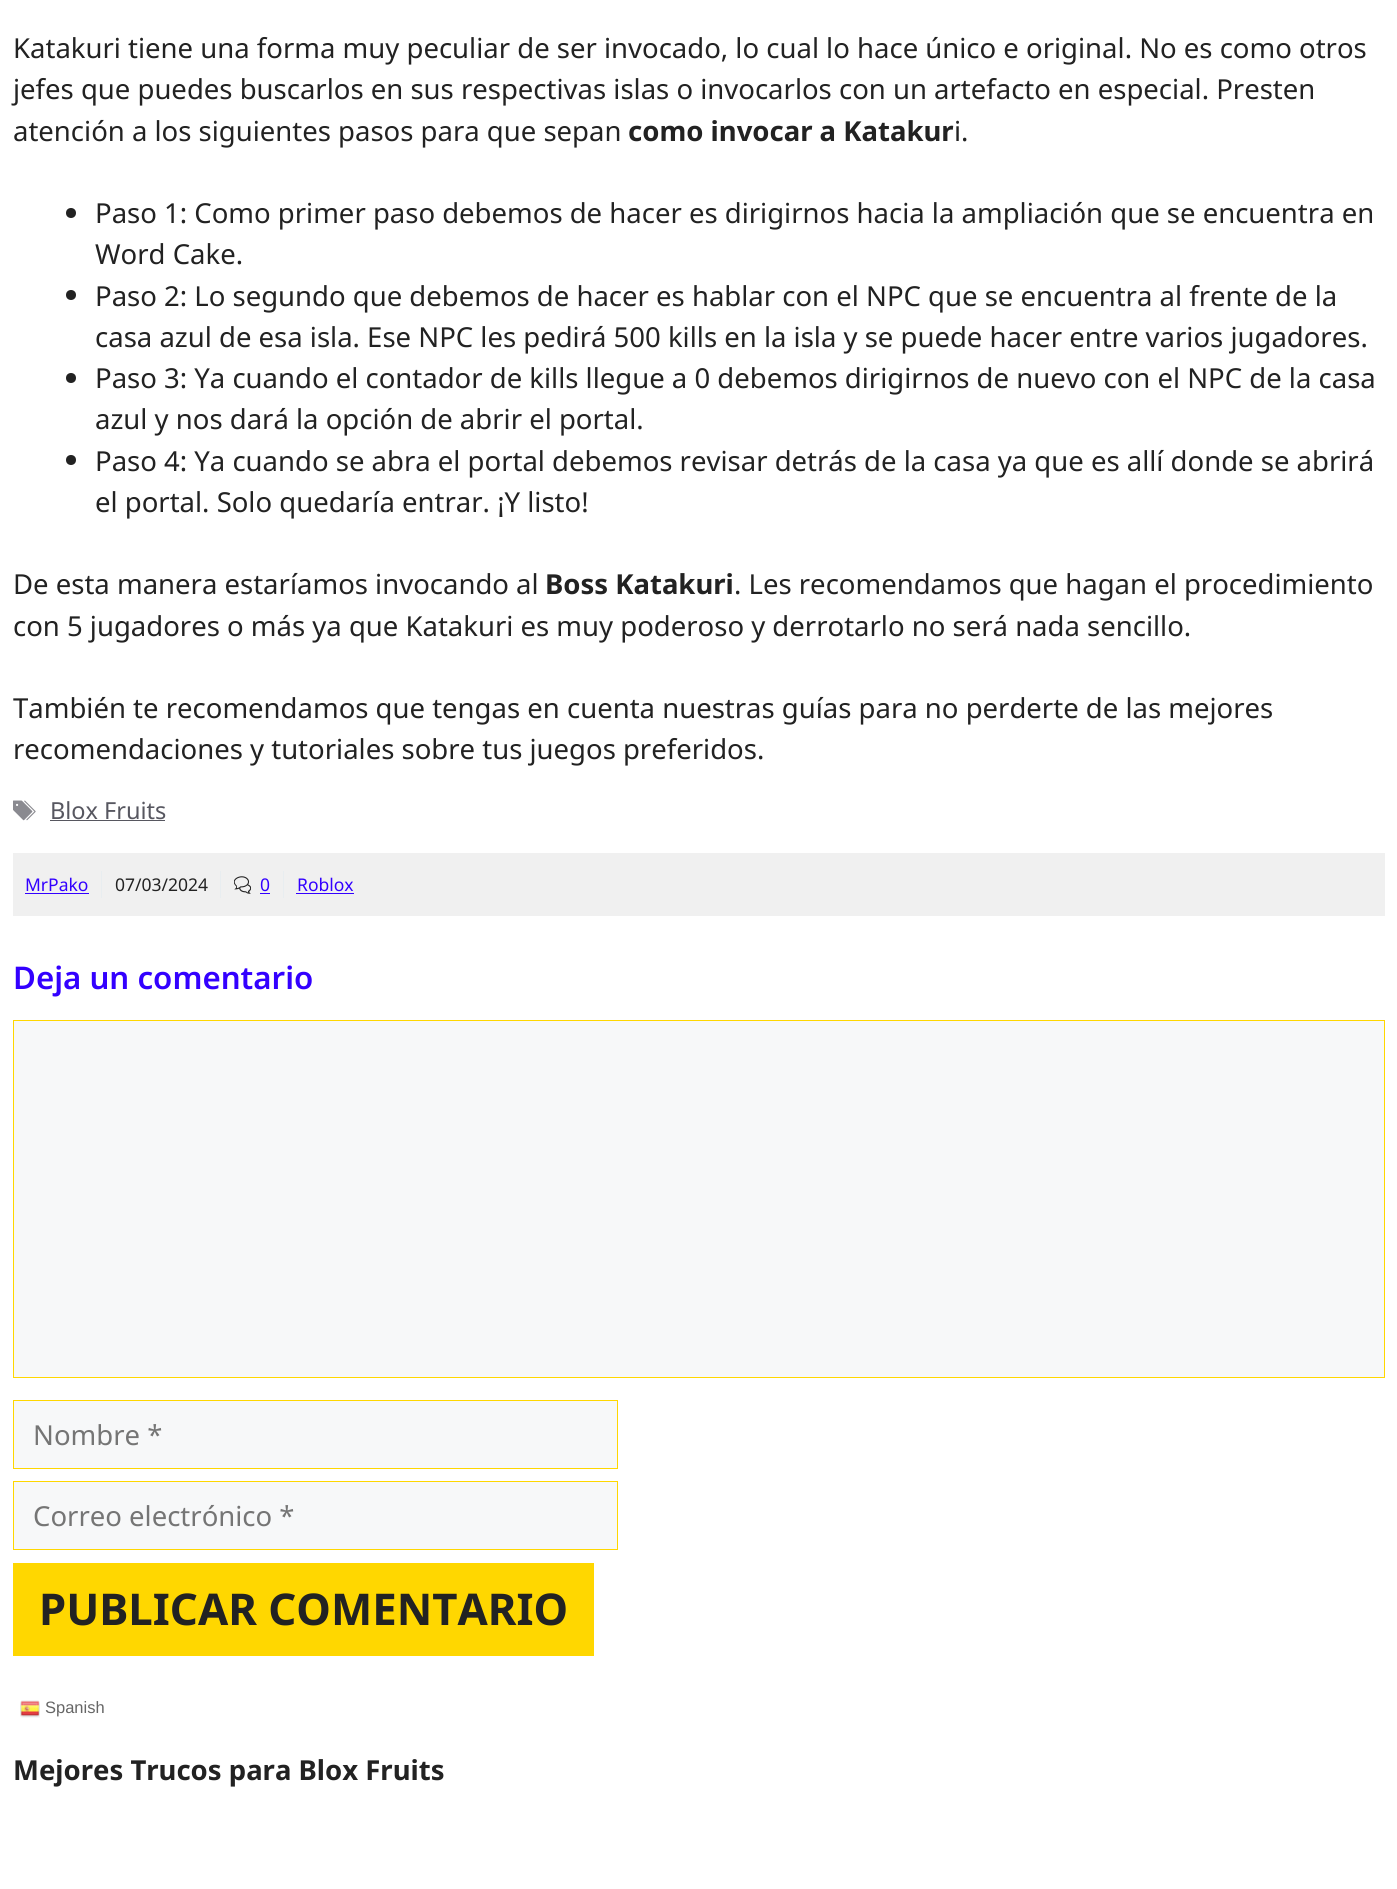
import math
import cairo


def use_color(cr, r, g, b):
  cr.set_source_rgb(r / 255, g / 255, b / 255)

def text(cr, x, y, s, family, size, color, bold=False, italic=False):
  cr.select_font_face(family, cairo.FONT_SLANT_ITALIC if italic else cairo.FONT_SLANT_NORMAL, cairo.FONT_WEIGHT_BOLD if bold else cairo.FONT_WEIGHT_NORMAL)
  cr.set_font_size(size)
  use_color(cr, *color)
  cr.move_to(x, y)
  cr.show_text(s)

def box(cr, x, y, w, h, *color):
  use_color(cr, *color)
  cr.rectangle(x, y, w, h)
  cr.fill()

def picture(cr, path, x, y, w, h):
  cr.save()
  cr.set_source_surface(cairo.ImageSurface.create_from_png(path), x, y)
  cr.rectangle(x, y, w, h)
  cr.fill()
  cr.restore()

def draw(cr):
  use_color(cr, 255, 255, 255)
  cr.paint()
  use_color(cr, 34, 34, 34)
  cr.arc(71, 213, 5, 0, 2 * math.pi)
  cr.fill()
  cr.arc(71, 295, 5, 0, 2 * math.pi)
  cr.fill()
  cr.arc(71, 378, 5, 0, 2 * math.pi)
  cr.fill()
  cr.arc(71, 460, 5, 0, 2 * math.pi)
  cr.fill()
  picture(cr, "img_01.png", 13, 800, 23, 21)
  box(cr, 50, 820, 115, 1, 87, 87, 96)
  box(cr, 13, 853, 1372, 63, 240, 240, 240)
  box(cr, 25, 893, 64, 1, 51, 0, 255)
  box(cr, 101, 871, 1, 27, 232, 237, 240)
  box(cr, 220, 871, 1, 27, 232, 237, 240)
  picture(cr, "img_02.png", 234, 876, 17, 18)
  box(cr, 260, 893, 10, 1, 51, 0, 255)
  box(cr, 283, 871, 1, 27, 232, 237, 240)
  box(cr, 296, 893, 58, 1, 51, 0, 255)
  use_color(cr, 247, 248, 249)
  cr.rectangle(13.5, 1020.5, 1371, 357)
  cr.fill_preserve()
  use_color(cr, 255, 215, 0)
  cr.set_line_width(1)
  cr.stroke()
  use_color(cr, 247, 248, 249)
  cr.rectangle(13.5, 1400.5, 604, 68)
  cr.fill_preserve()
  use_color(cr, 255, 215, 0)
  cr.stroke()
  use_color(cr, 247, 248, 249)
  cr.rectangle(13.5, 1481.5, 604, 68)
  cr.fill_preserve()
  use_color(cr, 255, 215, 0)
  cr.stroke()
  box(cr, 13, 1563, 581, 93, 255, 215, 0)
  picture(cr, "img_03.png", 20, 1700, 20, 18)
  text(cr, 13, 58, "Katakuri tiene una forma muy peculiar de ser invocado, lo cual lo hace único e original. No es como otros", "Noto Sans", 27.5, (34, 34, 34))
  text(cr, 13, 99, "jefes que puedes buscarlos en sus respectivas islas o invocarlos con un artefacto en especial. Presten", "Noto Sans", 27.5, (34, 34, 34))
  text(cr, 13, 141, "atención a los siguientes pasos para que sepan", "Noto Sans", 27.5, (34, 34, 34))
  text(cr, 628, 141, "como invocar a Katakur", "Noto Sans", 27.5, (34, 34, 34), bold=True)
  text(cr, 954, 141, "i.", "Noto Sans", 27.5, (34, 34, 34))
  text(cr, 95, 223, "Paso 1: Como primer paso debemos de hacer es dirigirnos hacia la ampliación que se encuentra en", "Noto Sans", 27.5, (34, 34, 34))
  text(cr, 95, 264, "Word Cake.", "Noto Sans", 27.5, (34, 34, 34))
  text(cr, 95, 306, "Paso 2: Lo segundo que debemos de hacer es hablar con el NPC que se encuentra al frente de la", "Noto Sans", 27.5, (34, 34, 34))
  text(cr, 95, 347, "casa azul de esa isla. Ese NPC les pedirá 500 kills en la isla y se puede hacer entre varios jugadores.", "Noto Sans", 27.5, (34, 34, 34))
  text(cr, 95, 388, "Paso 3: Ya cuando el contador de kills llegue a 0 debemos dirigirnos de nuevo con el NPC de la casa", "Noto Sans", 27.5, (34, 34, 34))
  text(cr, 95, 429, "azul y nos dará la opción de abrir el portal.", "Noto Sans", 27.5, (34, 34, 34))
  text(cr, 95, 471, "Paso 4: Ya cuando se abra el portal debemos revisar detrás de la casa ya que es allí donde se abrirá", "Noto Sans", 27.5, (34, 34, 34))
  text(cr, 95, 512, "el portal. Solo quedaría entrar. ¡Y listo!", "Noto Sans", 27.5, (34, 34, 34))
  text(cr, 13, 594, "De esta manera estaríamos invocando al", "Noto Sans", 27.5, (34, 34, 34))
  text(cr, 545, 594, "Boss Katakuri", "Noto Sans", 27.5, (34, 34, 34), bold=True)
  text(cr, 734, 594, ". Les recomendamos que hagan el procedimiento", "Noto Sans", 27.5, (34, 34, 34))
  text(cr, 13, 636, "con 5 jugadores o más ya que Katakuri es muy poderoso y derrotarlo no será nada sencillo.", "Noto Sans", 27.5, (34, 34, 34))
  text(cr, 13, 718, "También te recomendamos que tengas en cuenta nuestras guías para no perderte de las mejores", "Noto Sans", 27.5, (34, 34, 34))
  text(cr, 13, 759, "recomendaciones y tutoriales sobre tus juegos preferidos.", "Noto Sans", 27.5, (34, 34, 34))
  text(cr, 50, 819, "Blox Fruits", "Noto Sans", 23.5, (87, 87, 96))
  text(cr, 25, 891, "MrPako", "Noto Sans", 17.5, (51, 0, 255))
  text(cr, 115, 891, "07/03/2024", "Noto Sans", 17.5, (34, 34, 34))
  text(cr, 260, 891, "0", "Noto Sans", 17.5, (51, 0, 255))
  text(cr, 297, 891, "Roblox", "Noto Sans", 17.5, (51, 0, 255))
  text(cr, 13, 989, "Deja un comentario", "Noto Sans SemiBold", 31.25, (51, 0, 255))
  text(cr, 33, 1445, "Nombre *", "Noto Sans", 27.5, (117, 117, 117))
  text(cr, 33, 1526, "Correo electrónico *", "Noto Sans", 27.5, (117, 117, 117))
  text(cr, 39, 1625, "PUBLICAR COMENTARIO", "Noto Sans", 43.75, (34, 34, 34), bold=True)
  text(cr, 45, 1713, "Spanish", "Liberation Sans", 16.5, (102, 102, 102))
  text(cr, 13, 1780, "Mejores Trucos para Blox Fruits", "Noto Sans", 27.5, (34, 34, 34), bold=True)


surface = cairo.ImageSurface(cairo.FORMAT_RGB24, 1397, 1889)
cr = cairo.Context(surface)
options = cairo.FontOptions()
options.set_hint_metrics(cairo.HINT_METRICS_OFF)
options.set_hint_style(cairo.HINT_STYLE_NONE)
cr.set_font_options(options)
cr.set_miter_limit(4)
draw(cr)
surface.write_to_png("out.png")
